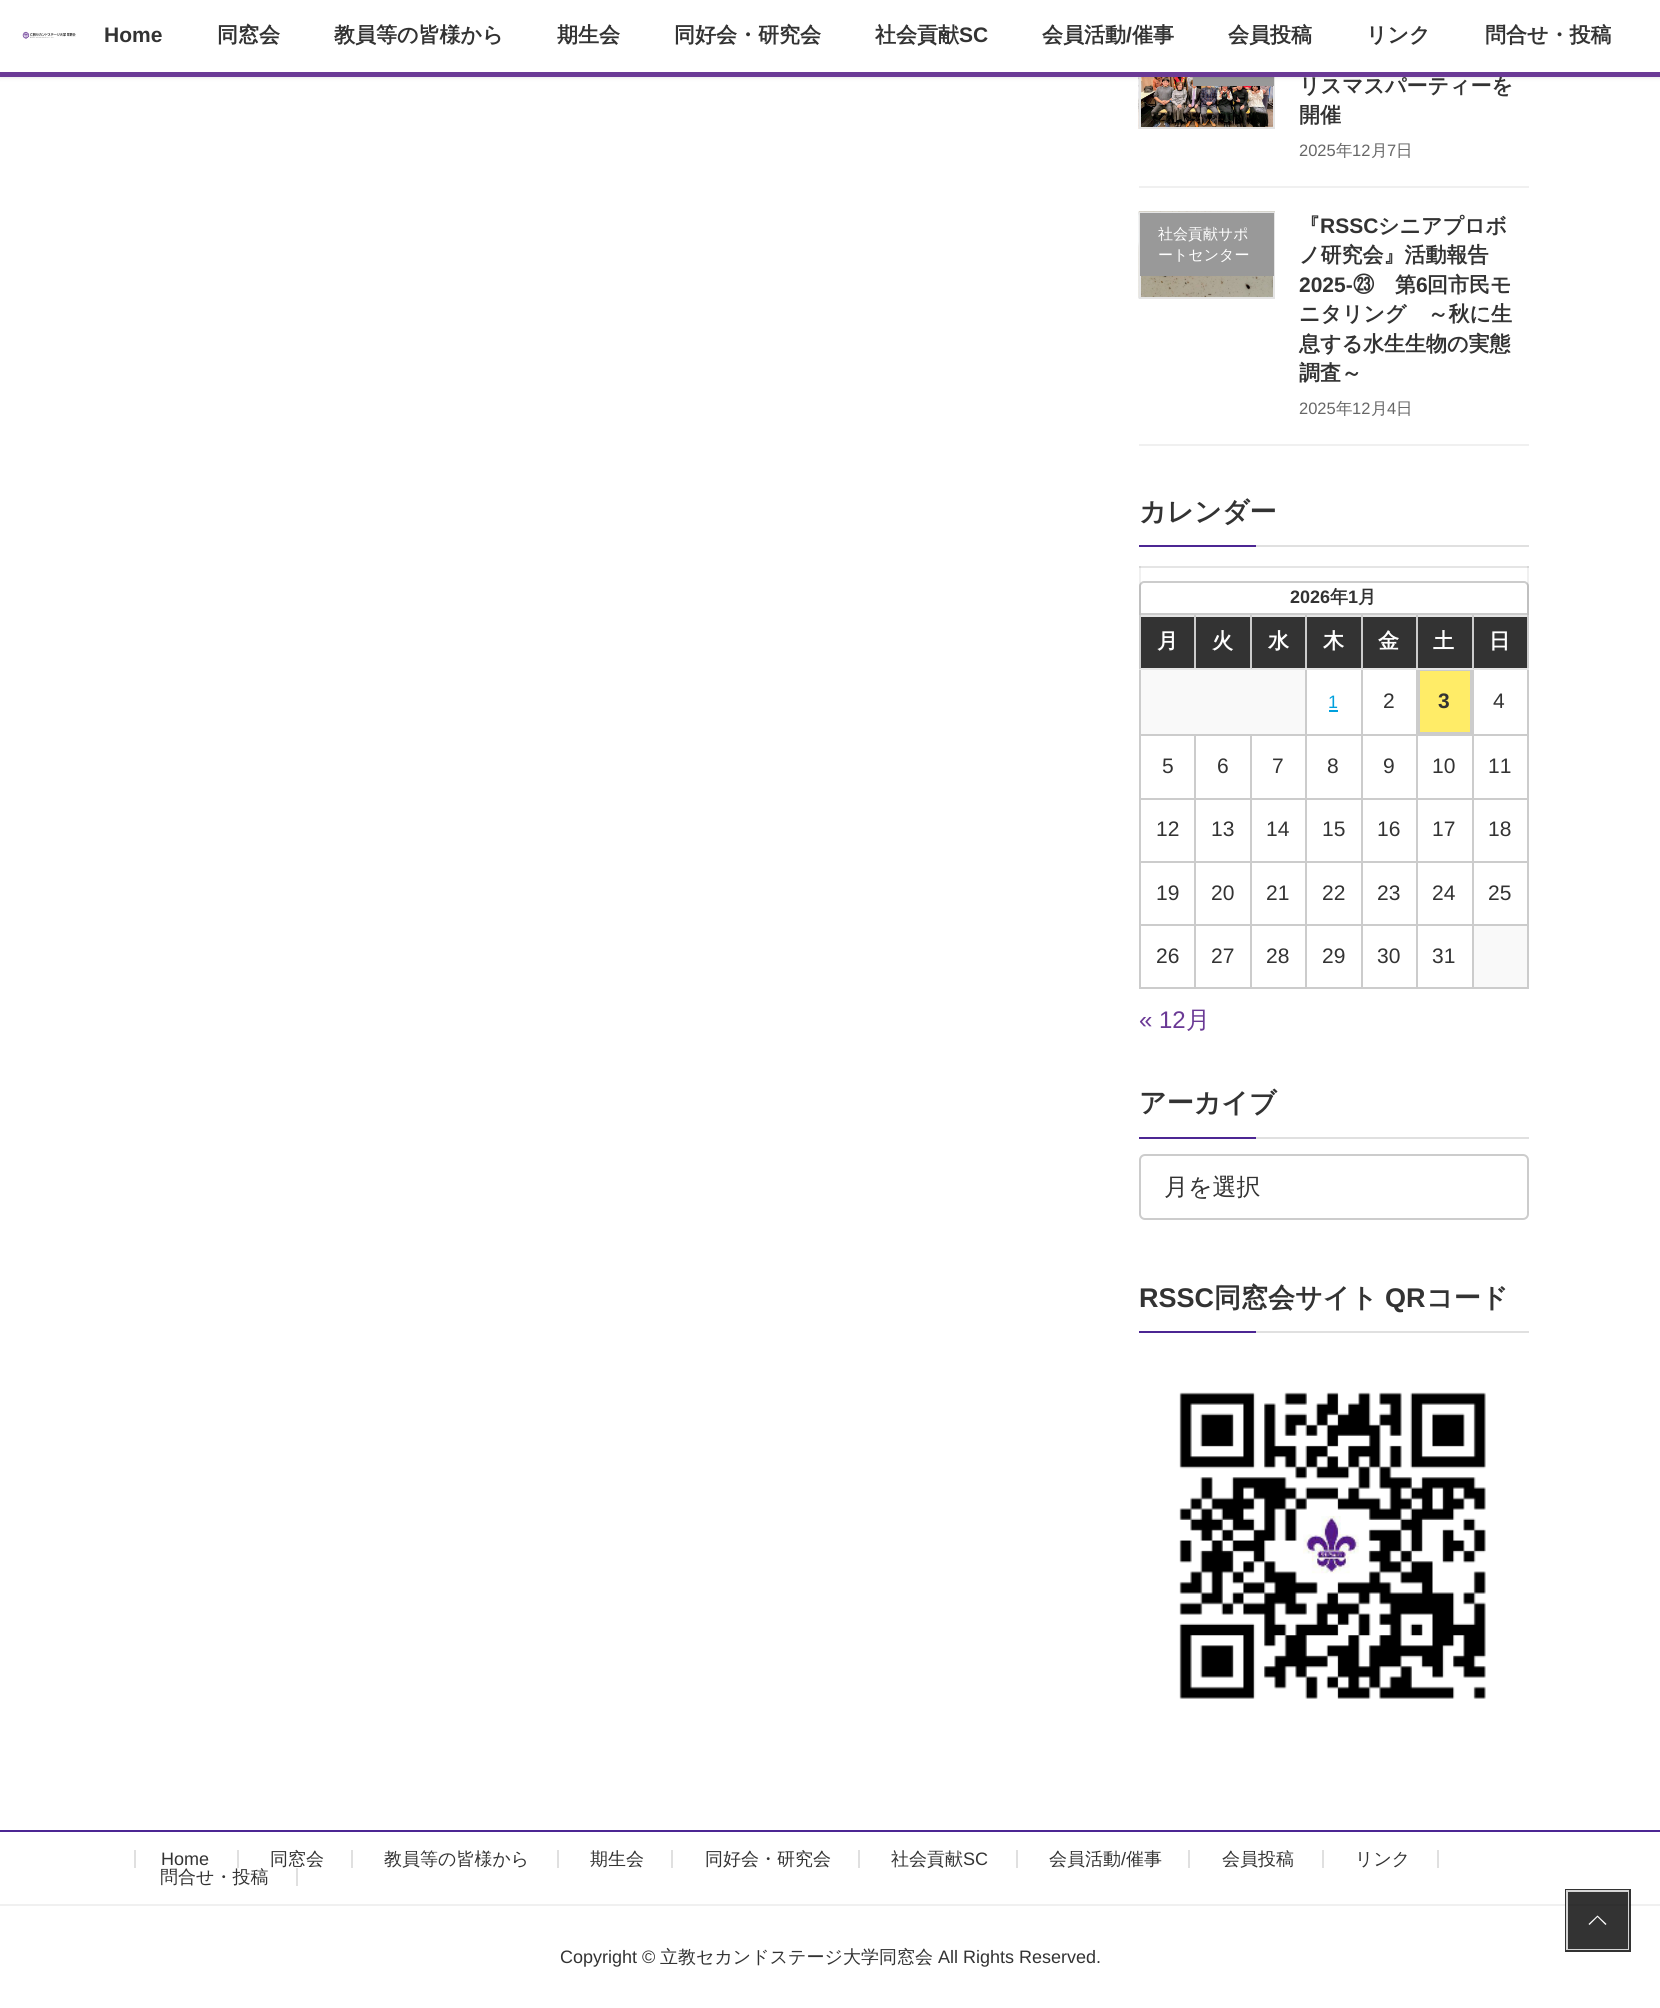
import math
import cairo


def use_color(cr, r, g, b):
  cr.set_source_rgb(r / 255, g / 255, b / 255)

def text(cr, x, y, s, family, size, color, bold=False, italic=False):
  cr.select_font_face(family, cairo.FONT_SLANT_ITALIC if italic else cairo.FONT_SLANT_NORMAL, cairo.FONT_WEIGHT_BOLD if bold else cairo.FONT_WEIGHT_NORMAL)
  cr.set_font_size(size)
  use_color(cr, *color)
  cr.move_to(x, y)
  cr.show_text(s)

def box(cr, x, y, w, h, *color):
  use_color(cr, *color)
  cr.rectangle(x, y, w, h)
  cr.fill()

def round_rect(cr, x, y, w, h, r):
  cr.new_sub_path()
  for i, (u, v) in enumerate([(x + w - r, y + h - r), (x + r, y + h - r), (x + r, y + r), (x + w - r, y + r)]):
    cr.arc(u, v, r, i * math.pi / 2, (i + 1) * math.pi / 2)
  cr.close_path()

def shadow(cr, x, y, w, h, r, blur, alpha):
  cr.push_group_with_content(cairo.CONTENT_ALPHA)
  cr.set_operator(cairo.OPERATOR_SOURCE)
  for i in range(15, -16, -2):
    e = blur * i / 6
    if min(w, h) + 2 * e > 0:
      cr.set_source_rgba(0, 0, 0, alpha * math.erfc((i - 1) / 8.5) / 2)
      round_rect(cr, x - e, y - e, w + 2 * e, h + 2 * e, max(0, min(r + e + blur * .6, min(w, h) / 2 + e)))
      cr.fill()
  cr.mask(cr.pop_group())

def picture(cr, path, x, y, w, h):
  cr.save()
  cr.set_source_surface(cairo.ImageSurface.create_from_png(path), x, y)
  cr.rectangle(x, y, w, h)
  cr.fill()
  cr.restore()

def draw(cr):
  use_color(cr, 255, 255, 255)
  cr.paint()
  picture(cr, "img_02.png", 1138, 77, 135, 52)
  cr.rectangle(1140, 43, 134, 85)
  use_color(cr, 229, 229, 229)
  cr.stroke()
  box(cr, 1193, 77, 81, 9, 153, 153, 153)
  use_color(cr, 0, 0, 0)
  shadow(cr, 0, 2, 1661, 76, 0, 2, 0.1)
  box(cr, 0, 0, 1660, 72, 255, 255, 255)
  box(cr, 0, 72, 1660, 5, 106, 57, 149)
  picture(cr, "img_01.png", 22, 31, 54, 8)
  box(cr, 1139, 186, 390, 2, 240, 240, 240)
  box(cr, 1139, 444, 390, 2, 240, 240, 240)
  picture(cr, "img_03.png", 1138, 211, 137, 88)
  cr.rectangle(1140, 213, 134, 85)
  use_color(cr, 229, 229, 229)
  cr.stroke()
  box(cr, 1140, 213, 134, 63, 153, 153, 153)
  box(cr, 1256, 545, 273, 2, 224, 224, 224)
  box(cr, 1139, 545, 117, 2, 76, 38, 147)
  box(cr, 1139, 566, 390, 2, 229, 229, 229)
  cr.new_path()
  cr.move_to(1144, 582)
  cr.line_to(1524, 582)
  cr.curve_to(1526, 582, 1528, 584, 1528, 586)
  cr.line_to(1528, 614)
  cr.line_to(1140, 614)
  cr.line_to(1140, 586)
  cr.curve_to(1140, 584, 1142, 582, 1144, 582)
  cr.close_path()
  use_color(cr, 204, 204, 204)
  cr.stroke()
  cr.set_source_rgba(0, 0, 0, 0.06)
  cr.rectangle(1527, 566, 2, 49)
  cr.fill()
  cr.rectangle(1139, 566, 2, 49)
  cr.fill()
  box(cr, 1141, 617, 53, 51, 51, 51, 51)
  box(cr, 1139, 615, 390, 2, 229, 229, 229)
  box(cr, 1472, 734, 57, 2, 204, 204, 204)
  box(cr, 1472, 798, 57, 2, 204, 204, 204)
  box(cr, 1472, 861, 57, 2, 204, 204, 204)
  box(cr, 1472, 924, 57, 2, 204, 204, 204)
  box(cr, 1527, 924, 2, 65, 204, 204, 204)
  box(cr, 1527, 861, 2, 65, 204, 204, 204)
  box(cr, 1527, 798, 2, 65, 204, 204, 204)
  box(cr, 1527, 668, 2, 132, 204, 204, 204)
  box(cr, 1527, 615, 2, 54, 204, 204, 204)
  box(cr, 1472, 987, 57, 2, 204, 204, 204)
  box(cr, 1472, 924, 2, 65, 204, 204, 204)
  box(cr, 1416, 924, 57, 2, 204, 204, 204)
  box(cr, 1472, 861, 2, 65, 204, 204, 204)
  box(cr, 1416, 861, 57, 2, 204, 204, 204)
  box(cr, 1472, 798, 2, 65, 204, 204, 204)
  box(cr, 1416, 798, 57, 2, 204, 204, 204)
  box(cr, 1472, 734, 2, 66, 204, 204, 204)
  box(cr, 1416, 734, 57, 2, 204, 204, 204)
  box(cr, 1472, 668, 2, 67, 204, 204, 204)
  box(cr, 1472, 668, 57, 2, 229, 229, 229)
  box(cr, 1472, 615, 2, 54, 204, 204, 204)
  box(cr, 1416, 987, 57, 2, 204, 204, 204)
  box(cr, 1416, 924, 2, 65, 204, 204, 204)
  box(cr, 1361, 924, 57, 2, 204, 204, 204)
  box(cr, 1416, 861, 2, 65, 204, 204, 204)
  box(cr, 1361, 861, 57, 2, 204, 204, 204)
  box(cr, 1416, 798, 2, 65, 204, 204, 204)
  box(cr, 1361, 798, 57, 2, 204, 204, 204)
  box(cr, 1416, 734, 2, 66, 204, 204, 204)
  box(cr, 1361, 734, 57, 2, 204, 204, 204)
  box(cr, 1416, 668, 2, 67, 204, 204, 204)
  use_color(cr, 255, 236, 103)
  cr.rectangle(1419, 670, 52, 63)
  cr.fill_preserve()
  use_color(cr, 204, 204, 204)
  cr.stroke()
  box(cr, 1416, 668, 57, 2, 229, 229, 229)
  box(cr, 1416, 615, 2, 54, 204, 204, 204)
  box(cr, 1361, 987, 57, 2, 204, 204, 204)
  box(cr, 1361, 924, 2, 65, 204, 204, 204)
  box(cr, 1305, 924, 57, 2, 204, 204, 204)
  box(cr, 1361, 861, 2, 65, 204, 204, 204)
  box(cr, 1305, 861, 57, 2, 204, 204, 204)
  box(cr, 1361, 798, 2, 65, 204, 204, 204)
  box(cr, 1305, 798, 57, 2, 204, 204, 204)
  box(cr, 1361, 734, 2, 66, 204, 204, 204)
  box(cr, 1305, 734, 57, 2, 204, 204, 204)
  box(cr, 1361, 668, 2, 67, 204, 204, 204)
  box(cr, 1361, 668, 57, 2, 229, 229, 229)
  box(cr, 1361, 615, 2, 54, 204, 204, 204)
  box(cr, 1305, 987, 57, 2, 204, 204, 204)
  box(cr, 1305, 924, 2, 65, 204, 204, 204)
  box(cr, 1250, 924, 57, 2, 204, 204, 204)
  box(cr, 1305, 861, 2, 65, 204, 204, 204)
  box(cr, 1250, 861, 57, 2, 204, 204, 204)
  box(cr, 1305, 798, 2, 65, 204, 204, 204)
  box(cr, 1250, 798, 57, 2, 204, 204, 204)
  box(cr, 1305, 734, 2, 66, 204, 204, 204)
  box(cr, 1250, 734, 57, 2, 204, 204, 204)
  box(cr, 1305, 668, 2, 67, 204, 204, 204)
  box(cr, 1305, 668, 57, 2, 229, 229, 229)
  box(cr, 1305, 615, 2, 54, 204, 204, 204)
  box(cr, 1250, 668, 57, 2, 229, 229, 229)
  box(cr, 1250, 615, 2, 54, 204, 204, 204)
  box(cr, 1194, 668, 57, 2, 229, 229, 229)
  box(cr, 1194, 615, 2, 54, 204, 204, 204)
  box(cr, 1250, 987, 57, 2, 204, 204, 204)
  box(cr, 1250, 924, 2, 65, 204, 204, 204)
  box(cr, 1194, 924, 57, 2, 204, 204, 204)
  box(cr, 1250, 861, 2, 65, 204, 204, 204)
  box(cr, 1194, 861, 57, 2, 204, 204, 204)
  box(cr, 1250, 798, 2, 65, 204, 204, 204)
  box(cr, 1194, 798, 57, 2, 204, 204, 204)
  box(cr, 1250, 734, 2, 66, 204, 204, 204)
  box(cr, 1194, 734, 57, 2, 204, 204, 204)
  box(cr, 1194, 987, 57, 2, 204, 204, 204)
  box(cr, 1194, 924, 2, 65, 204, 204, 204)
  box(cr, 1139, 924, 57, 2, 204, 204, 204)
  box(cr, 1194, 861, 2, 65, 204, 204, 204)
  box(cr, 1139, 861, 57, 2, 204, 204, 204)
  box(cr, 1194, 798, 2, 65, 204, 204, 204)
  box(cr, 1139, 798, 57, 2, 204, 204, 204)
  box(cr, 1194, 734, 2, 66, 204, 204, 204)
  box(cr, 1139, 734, 57, 2, 204, 204, 204)
  box(cr, 1139, 987, 57, 2, 204, 204, 204)
  box(cr, 1139, 924, 2, 65, 204, 204, 204)
  box(cr, 1139, 861, 2, 65, 204, 204, 204)
  box(cr, 1139, 798, 2, 65, 204, 204, 204)
  box(cr, 1139, 668, 2, 132, 204, 204, 204)
  box(cr, 1139, 668, 57, 2, 229, 229, 229)
  box(cr, 1139, 615, 2, 54, 204, 204, 204)
  box(cr, 1196, 617, 54, 51, 51, 51, 51)
  box(cr, 1252, 617, 53, 51, 51, 51, 51)
  box(cr, 1307, 617, 54, 51, 51, 51, 51)
  box(cr, 1363, 617, 53, 51, 51, 51, 51)
  box(cr, 1418, 617, 54, 51, 51, 51, 51)
  box(cr, 1474, 617, 53, 51, 51, 51, 51)
  box(cr, 1141, 670, 164, 64, 249, 249, 249)
  box(cr, 1329, 710, 9, 2, 0, 160, 221)
  box(cr, 1474, 926, 53, 61, 249, 249, 249)
  box(cr, 1256, 1137, 273, 2, 224, 224, 224)
  box(cr, 1139, 1137, 117, 2, 76, 38, 147)
  round_rect(cr, 1140, 1155, 388, 64, 5)
  use_color(cr, 204, 204, 204)
  cr.stroke()
  box(cr, 1256, 1331, 273, 2, 224, 224, 224)
  box(cr, 1139, 1331, 117, 2, 76, 38, 147)
  picture(cr, "img_04.png", 1179, 1392, 307, 307)
  box(cr, 0, 1830, 1660, 2, 76, 38, 147)
  box(cr, 0, 1904, 1660, 2, 240, 240, 240)
  box(cr, 237, 1850, 2, 18, 224, 224, 224)
  box(cr, 134, 1850, 2, 18, 224, 224, 224)
  box(cr, 351, 1850, 2, 18, 224, 224, 224)
  box(cr, 557, 1850, 2, 18, 224, 224, 224)
  box(cr, 671, 1850, 2, 18, 224, 224, 224)
  box(cr, 858, 1850, 2, 18, 224, 224, 224)
  box(cr, 1016, 1850, 2, 18, 224, 224, 224)
  box(cr, 1188, 1850, 2, 18, 224, 224, 224)
  box(cr, 1322, 1850, 2, 18, 224, 224, 224)
  box(cr, 1437, 1850, 2, 18, 224, 224, 224)
  box(cr, 296, 1868, 2, 18, 224, 224, 224)
  cr.rectangle(1566.5, 1890.5, 63, 60)
  cr.set_source_rgba(0, 0, 0, 0.8)
  cr.set_line_width(3)
  cr.stroke()
  cr.rectangle(1567, 1891, 61, 58)
  cr.set_source_rgba(1, 1, 1, 0.8)
  cr.set_line_width(2)
  cr.stroke()
  cr.set_source_rgba(0, 0, 0, 0.8)
  cr.rectangle(1568, 1892, 60, 57)
  cr.fill()
  use_color(cr, 255, 255, 255)
  cr.new_path()
  cr.move_to(1606.5, 1924)
  cr.line_to(1605.5, 1925)
  cr.line_to(1597.5, 1917)
  cr.line_to(1589.5, 1925)
  cr.line_to(1588.5, 1924)
  cr.line_to(1597.5, 1915.5)
  cr.close_path()
  cr.fill()
  text(cr, 104, 42, "Home", "Liberation Sans", 21, (51, 51, 51), bold=True)
  text(cr, 217, 42, "同窓会", "WenQuanYi Zen Hei", 21, (51, 51, 51), bold=True)
  text(cr, 334, 42, "教員等の皆様から", "WenQuanYi Zen Hei", 21, (51, 51, 51), bold=True)
  text(cr, 557, 42, "期生会", "WenQuanYi Zen Hei", 21, (51, 51, 51), bold=True)
  text(cr, 674, 42, "同好会・研究会", "WenQuanYi Zen Hei", 21, (51, 51, 51), bold=True)
  text(cr, 875, 42, "社会貢献", "WenQuanYi Zen Hei", 21, (51, 51, 51), bold=True)
  text(cr, 959, 42, "SC", "Liberation Sans", 21, (51, 51, 51), bold=True)
  text(cr, 1042, 42, "会員活動", "WenQuanYi Zen Hei", 21, (51, 51, 51), bold=True)
  text(cr, 1126, 42, "/", "Liberation Sans", 21, (51, 51, 51), bold=True)
  text(cr, 1132, 42, "催事", "WenQuanYi Zen Hei", 21, (51, 51, 51), bold=True)
  text(cr, 1228, 42, "会員投稿", "WenQuanYi Zen Hei", 21, (51, 51, 51), bold=True)
  text(cr, 1366, 42, "リンク", "WenQuanYi Zen Hei", 21, (51, 51, 51), bold=True)
  text(cr, 1485, 42, "問合せ・投稿", "WenQuanYi Zen Hei", 21, (51, 51, 51), bold=True)
  text(cr, 1299, 93, "リスマスパーティーを", "WenQuanYi Zen Hei", 21, (51, 51, 51), bold=True)
  text(cr, 1299, 122, "開催", "WenQuanYi Zen Hei", 21, (51, 51, 51), bold=True)
  text(cr, 1299, 156, "2025", "Liberation Sans", 16.5, (102, 102, 102))
  text(cr, 1336, 156, "年", "WenQuanYi Zen Hei Medium", 16.5, (102, 102, 102))
  text(cr, 1352, 156, "12", "Liberation Sans", 16.5, (102, 102, 102))
  text(cr, 1371, 156, "月", "WenQuanYi Zen Hei Medium", 16.5, (102, 102, 102))
  text(cr, 1387, 156, "7", "Liberation Sans", 16.5, (102, 102, 102))
  text(cr, 1396, 156, "日", "WenQuanYi Zen Hei Medium", 16.5, (102, 102, 102))
  text(cr, 1158, 239, "社会貢献サポ", "WenQuanYi Zen Hei Medium", 15, (255, 255, 255))
  text(cr, 1158, 260, "ートセンター", "WenQuanYi Zen Hei Medium", 15, (255, 255, 255))
  text(cr, 1299, 233, "『", "WenQuanYi Zen Hei", 21, (51, 51, 51), bold=True)
  text(cr, 1320, 233, "RSSC", "Liberation Sans", 21, (51, 51, 51), bold=True)
  text(cr, 1378, 233, "シニアプロボ", "WenQuanYi Zen Hei", 21, (51, 51, 51), bold=True)
  text(cr, 1299, 262, "ノ研究会』活動報告", "WenQuanYi Zen Hei", 21, (51, 51, 51), bold=True)
  text(cr, 1299, 292, "2025-", "Liberation Sans", 21, (51, 51, 51), bold=True)
  text(cr, 1353, 292, "㉓", "IPAPGothic", 21, (51, 51, 51), bold=True)
  text(cr, 1395, 292, "第", "WenQuanYi Zen Hei", 21, (51, 51, 51), bold=True)
  text(cr, 1416, 292, "6", "Liberation Sans", 21, (51, 51, 51), bold=True)
  text(cr, 1427, 292, "回市民モ", "WenQuanYi Zen Hei", 21, (51, 51, 51), bold=True)
  text(cr, 1299, 321, "ニタリング　～秋に生", "WenQuanYi Zen Hei", 21, (51, 51, 51), bold=True)
  text(cr, 1299, 351, "息する水生生物の実態", "WenQuanYi Zen Hei", 21, (51, 51, 51), bold=True)
  text(cr, 1299, 380, "調査～", "WenQuanYi Zen Hei", 21, (51, 51, 51), bold=True)
  text(cr, 1299, 414, "2025", "Liberation Sans", 16.5, (102, 102, 102))
  text(cr, 1336, 414, "年", "WenQuanYi Zen Hei Medium", 16.5, (102, 102, 102))
  text(cr, 1352, 414, "12", "Liberation Sans", 16.5, (102, 102, 102))
  text(cr, 1371, 414, "月", "WenQuanYi Zen Hei Medium", 16.5, (102, 102, 102))
  text(cr, 1387, 414, "4", "Liberation Sans", 16.5, (102, 102, 102))
  text(cr, 1396, 414, "日", "WenQuanYi Zen Hei Medium", 16.5, (102, 102, 102))
  text(cr, 1139, 521, "カレンダー", "WenQuanYi Zen Hei", 27, (51, 51, 51), bold=True)
  text(cr, 1290, 603, "2026", "Liberation Sans", 18, (51, 51, 51), bold=True)
  text(cr, 1330, 603, "年", "WenQuanYi Zen Hei", 18, (51, 51, 51), bold=True)
  text(cr, 1348, 603, "1", "Liberation Sans", 18, (51, 51, 51), bold=True)
  text(cr, 1358, 603, "月", "WenQuanYi Zen Hei", 18, (51, 51, 51), bold=True)
  text(cr, 1157, 648, "月", "WenQuanYi Zen Hei", 21, (255, 255, 255), bold=True)
  text(cr, 1212, 648, "火", "WenQuanYi Zen Hei", 21, (255, 255, 255), bold=True)
  text(cr, 1268, 648, "水", "WenQuanYi Zen Hei", 21, (255, 255, 255), bold=True)
  text(cr, 1323, 648, "木", "WenQuanYi Zen Hei", 21, (255, 255, 255), bold=True)
  text(cr, 1378, 648, "金", "WenQuanYi Zen Hei", 21, (255, 255, 255), bold=True)
  text(cr, 1433, 648, "土", "WenQuanYi Zen Hei", 21, (255, 255, 255), bold=True)
  text(cr, 1489, 648, "日", "WenQuanYi Zen Hei", 21, (255, 255, 255), bold=True)
  text(cr, 1328, 708, "1", "Liberation Sans", 18, (0, 160, 221))
  text(cr, 1383, 708, "2", "Liberation Sans", 21, (51, 51, 51))
  text(cr, 1438, 708, "3", "Liberation Sans", 21, (51, 51, 51), bold=True)
  text(cr, 1493, 708, "4", "Liberation Sans", 21, (51, 51, 51))
  text(cr, 1162, 773, "5", "Liberation Sans", 21, (51, 51, 51))
  text(cr, 1217, 773, "6", "Liberation Sans", 21, (51, 51, 51))
  text(cr, 1272, 773, "7", "Liberation Sans", 21, (51, 51, 51))
  text(cr, 1327, 773, "8", "Liberation Sans", 21, (51, 51, 51))
  text(cr, 1383, 773, "9", "Liberation Sans", 21, (51, 51, 51))
  text(cr, 1432, 773, "10", "Liberation Sans", 21, (51, 51, 51))
  text(cr, 1488, 773, "11", "Liberation Sans", 21, (51, 51, 51))
  text(cr, 1156, 836, "12", "Liberation Sans", 21, (51, 51, 51))
  text(cr, 1211, 836, "13", "Liberation Sans", 21, (51, 51, 51))
  text(cr, 1266, 836, "14", "Liberation Sans", 21, (51, 51, 51))
  text(cr, 1322, 836, "15", "Liberation Sans", 21, (51, 51, 51))
  text(cr, 1377, 836, "16", "Liberation Sans", 21, (51, 51, 51))
  text(cr, 1432, 836, "17", "Liberation Sans", 21, (51, 51, 51))
  text(cr, 1488, 836, "18", "Liberation Sans", 21, (51, 51, 51))
  text(cr, 1156, 900, "19", "Liberation Sans", 21, (51, 51, 51))
  text(cr, 1211, 900, "20", "Liberation Sans", 21, (51, 51, 51))
  text(cr, 1266, 900, "21", "Liberation Sans", 21, (51, 51, 51))
  text(cr, 1322, 900, "22", "Liberation Sans", 21, (51, 51, 51))
  text(cr, 1377, 900, "23", "Liberation Sans", 21, (51, 51, 51))
  text(cr, 1432, 900, "24", "Liberation Sans", 21, (51, 51, 51))
  text(cr, 1488, 900, "25", "Liberation Sans", 21, (51, 51, 51))
  text(cr, 1156, 963, "26", "Liberation Sans", 21, (51, 51, 51))
  text(cr, 1211, 963, "27", "Liberation Sans", 21, (51, 51, 51))
  text(cr, 1266, 963, "28", "Liberation Sans", 21, (51, 51, 51))
  text(cr, 1322, 963, "29", "Liberation Sans", 21, (51, 51, 51))
  text(cr, 1377, 963, "30", "Liberation Sans", 21, (51, 51, 51))
  text(cr, 1432, 963, "31", "Liberation Sans", 21, (51, 51, 51))
  text(cr, 1139, 1028, "« 12", "Liberation Sans", 24, (106, 57, 149))
  text(cr, 1186, 1028, "月", "WenQuanYi Zen Hei Medium", 24, (106, 57, 149))
  text(cr, 1139, 1112, "アーカイブ", "WenQuanYi Zen Hei", 27, (51, 51, 51), bold=True)
  text(cr, 1164, 1195, "月を選択", "WenQuanYi Zen Hei Medium", 24, (51, 51, 51))
  text(cr, 1139, 1307, "RSSC", "Liberation Sans", 27, (51, 51, 51), bold=True)
  text(cr, 1214, 1307, "同窓会サイト", "WenQuanYi Zen Hei", 27, (51, 51, 51), bold=True)
  text(cr, 1385, 1307, "QR", "Liberation Sans", 27, (51, 51, 51), bold=True)
  text(cr, 1426, 1307, "コード", "WenQuanYi Zen Hei", 27, (51, 51, 51), bold=True)
  text(cr, 161, 1865, "Home", "Liberation Sans", 18, (51, 51, 51))
  text(cr, 270, 1865, "同窓会", "WenQuanYi Zen Hei Medium", 18, (51, 51, 51))
  text(cr, 384, 1865, "教員等の皆様から", "WenQuanYi Zen Hei Medium", 18, (51, 51, 51))
  text(cr, 590, 1865, "期生会", "WenQuanYi Zen Hei Medium", 18, (51, 51, 51))
  text(cr, 705, 1865, "同好会・研究会", "WenQuanYi Zen Hei Medium", 18, (51, 51, 51))
  text(cr, 891, 1865, "社会貢献", "WenQuanYi Zen Hei Medium", 18, (51, 51, 51))
  text(cr, 963, 1865, "SC", "Liberation Sans", 18, (51, 51, 51))
  text(cr, 1049, 1865, "会員活動", "WenQuanYi Zen Hei Medium", 18, (51, 51, 51))
  text(cr, 1121, 1865, "/", "Liberation Sans", 18, (51, 51, 51))
  text(cr, 1126, 1865, "催事", "WenQuanYi Zen Hei Medium", 18, (51, 51, 51))
  text(cr, 1222, 1865, "会員投稿", "WenQuanYi Zen Hei Medium", 18, (51, 51, 51))
  text(cr, 1355, 1865, "リンク", "WenQuanYi Zen Hei Medium", 18, (51, 51, 51))
  text(cr, 160, 1883, "問合せ・投稿", "WenQuanYi Zen Hei Medium", 18, (51, 51, 51))
  text(cr, 560, 1963, "Copyright ©", "Liberation Sans", 18, (51, 51, 51))
  text(cr, 660, 1963, "立教セカンドステージ大学同窓会", "WenQuanYi Zen Hei Medium", 18, (51, 51, 51))
  text(cr, 938, 1963, "All Rights Reserved.", "Liberation Sans", 18, (51, 51, 51))


surface = cairo.ImageSurface(cairo.FORMAT_RGB24, 1660, 2008)
cr = cairo.Context(surface)
options = cairo.FontOptions()
options.set_hint_metrics(cairo.HINT_METRICS_OFF)
options.set_hint_style(cairo.HINT_STYLE_NONE)
cr.set_font_options(options)
cr.set_miter_limit(4)
draw(cr)
surface.write_to_png("out.png")
